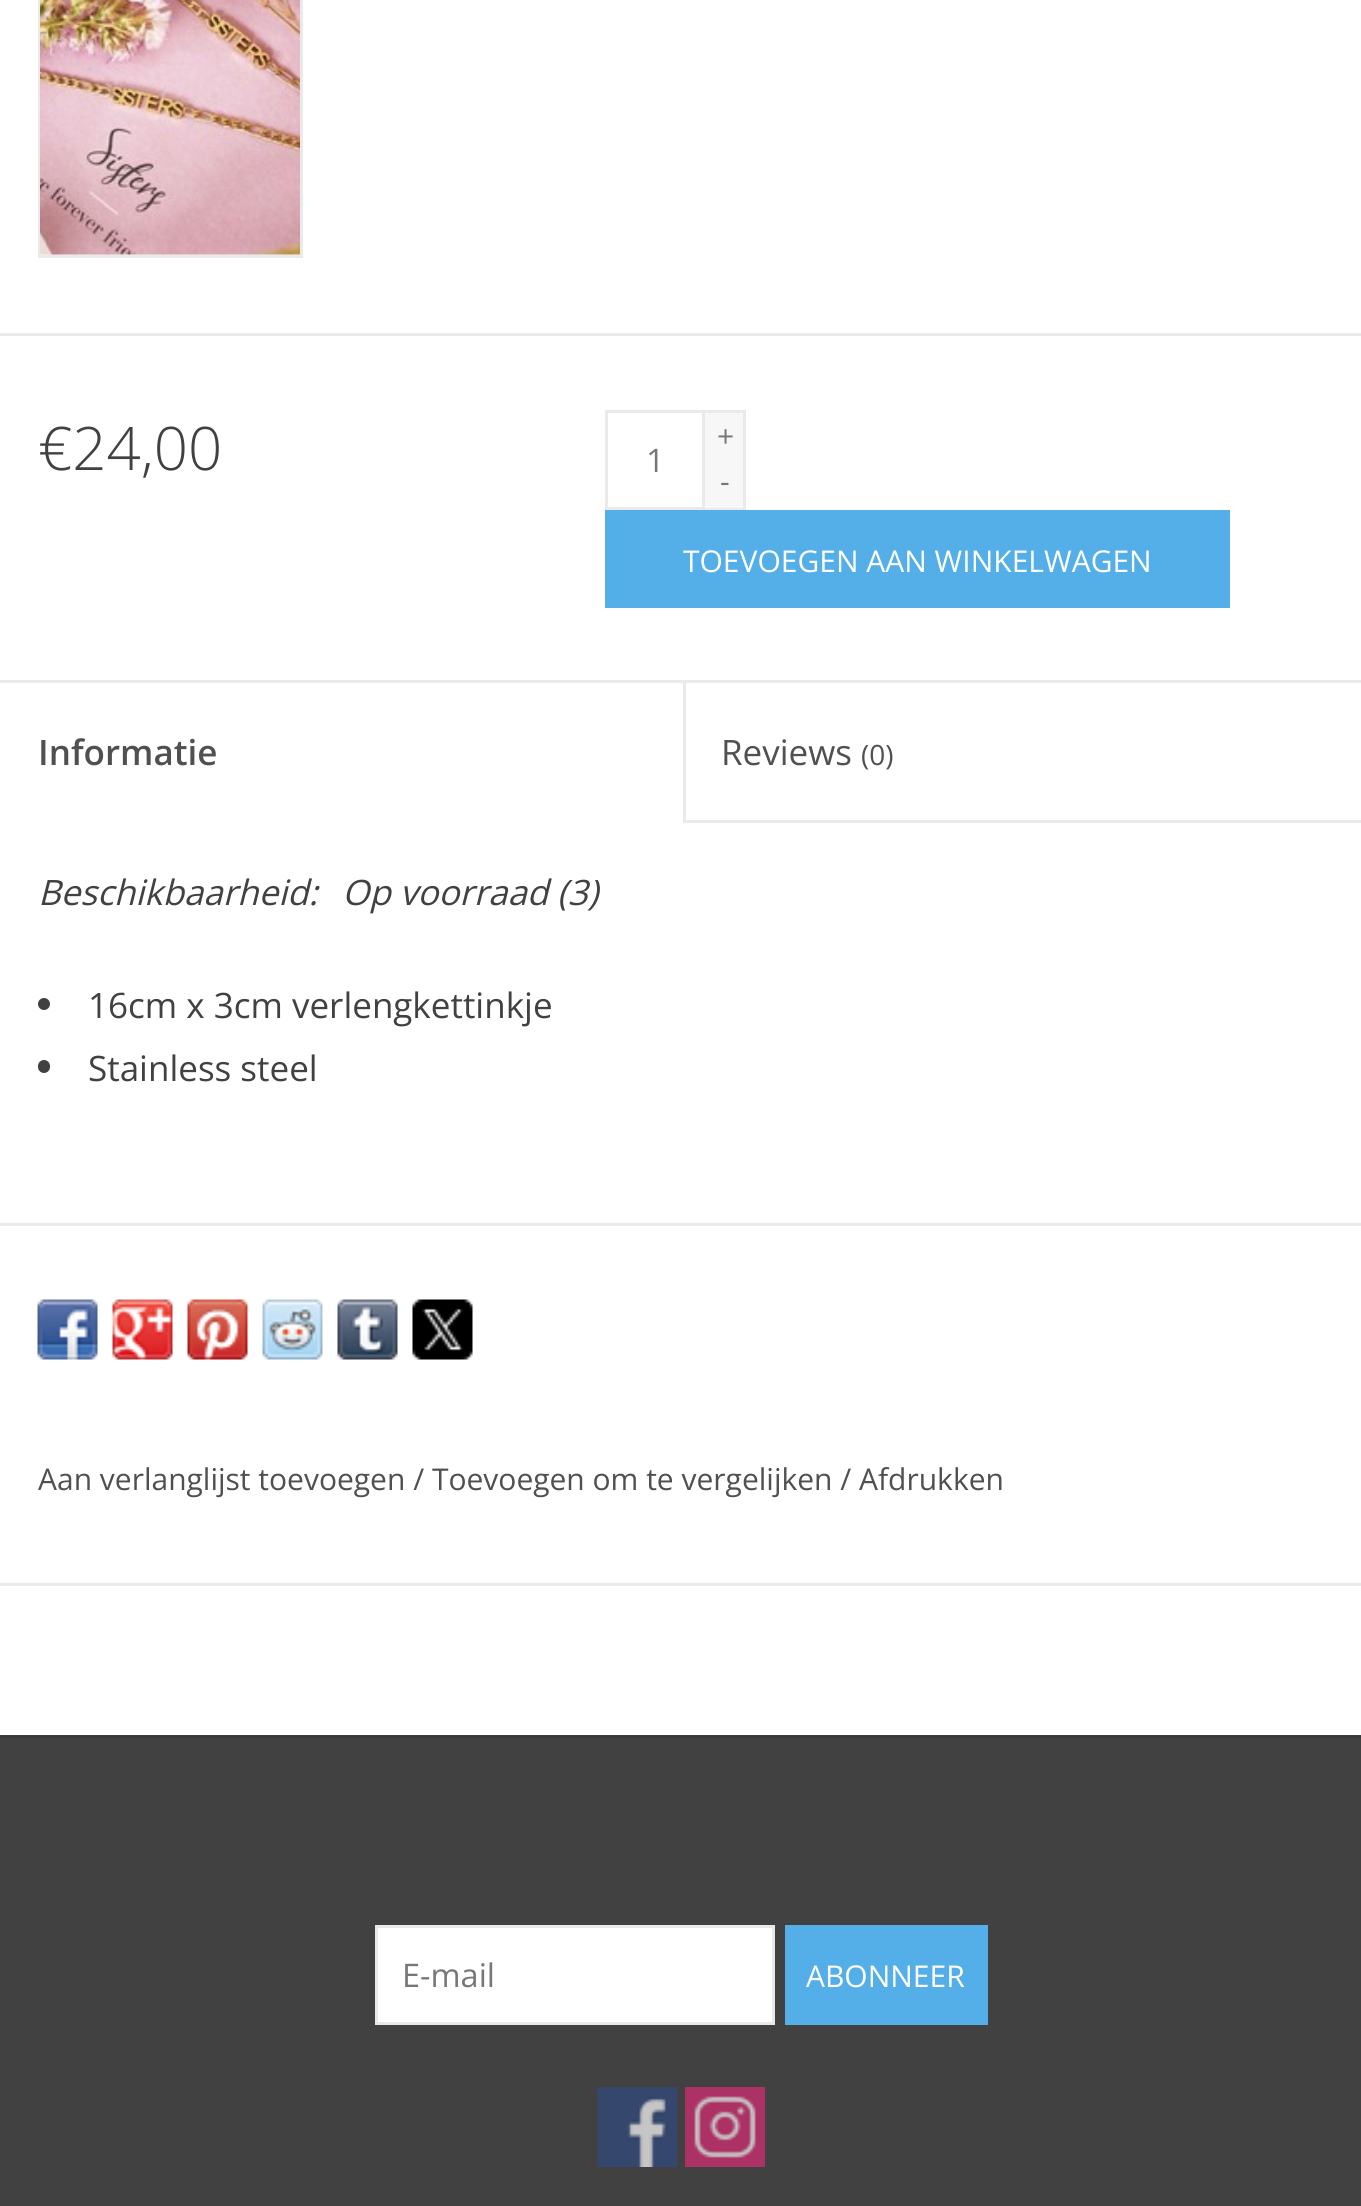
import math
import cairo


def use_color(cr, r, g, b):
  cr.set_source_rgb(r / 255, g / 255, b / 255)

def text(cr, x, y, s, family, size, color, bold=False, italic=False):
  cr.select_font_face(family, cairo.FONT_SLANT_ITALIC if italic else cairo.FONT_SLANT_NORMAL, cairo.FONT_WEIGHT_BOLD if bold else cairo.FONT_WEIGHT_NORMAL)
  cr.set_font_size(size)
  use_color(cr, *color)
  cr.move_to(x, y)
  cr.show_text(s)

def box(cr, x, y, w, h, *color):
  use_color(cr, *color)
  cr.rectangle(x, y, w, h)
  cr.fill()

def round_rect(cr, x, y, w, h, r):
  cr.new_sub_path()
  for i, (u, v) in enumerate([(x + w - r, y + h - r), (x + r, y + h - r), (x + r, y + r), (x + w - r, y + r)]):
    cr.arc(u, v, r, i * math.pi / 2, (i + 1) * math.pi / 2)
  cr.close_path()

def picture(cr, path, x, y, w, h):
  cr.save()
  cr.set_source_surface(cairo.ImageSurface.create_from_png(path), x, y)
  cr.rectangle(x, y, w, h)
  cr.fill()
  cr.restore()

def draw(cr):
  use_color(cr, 255, 255, 255)
  cr.paint()
  cr.rectangle(39.5, -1.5, 262, 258)
  use_color(cr, 234, 234, 234)
  cr.set_line_width(3)
  cr.stroke()
  box(cr, 40, 254, 260, 1, 247, 247, 247)
  picture(cr, "img_01.png", 40, 0, 260, 255)
  box(cr, 0, 333, 1361, 3, 234, 234, 234)
  cr.rectangle(606.5, 411.5, 97, 97)
  cr.stroke()
  box(cr, 705, 413, 38, 95, 247, 247, 247)
  box(cr, 705, 410, 40, 3, 234, 234, 234)
  box(cr, 743, 410, 3, 100, 234, 234, 234)
  box(cr, 705, 508, 40, 2, 234, 234, 234)
  box(cr, 605, 510, 625, 98, 84, 175, 233)
  box(cr, 0, 680, 1361, 3, 234, 234, 234)
  box(cr, 683, 820, 678, 3, 234, 234, 234)
  box(cr, 683, 683, 3, 140, 234, 234, 234)
  use_color(cr, 65, 65, 65)
  cr.arc(44, 1004, 6, 0, 2 * math.pi)
  cr.fill()
  round_rect(cr, 38, 1060, 12, 13, 6)
  cr.fill()
  box(cr, 0, 1223, 1361, 3, 234, 234, 234)
  box(cr, 0, 1583, 1361, 3, 234, 234, 234)
  picture(cr, "img_02.png", 37, 1299, 61, 61)
  picture(cr, "img_03.png", 112, 1299, 61, 61)
  picture(cr, "img_04.png", 187, 1299, 61, 61)
  picture(cr, "img_05.png", 262, 1299, 61, 61)
  picture(cr, "img_06.png", 337, 1299, 61, 61)
  picture(cr, "img_07.png", 412, 1299, 61, 61)
  box(cr, 0, 1738, 1361, 468, 65, 65, 65)
  box(cr, 0, 1735, 1361, 3, 59, 59, 59)
  use_color(cr, 255, 255, 255)
  cr.rectangle(376.5, 1926.5, 397, 97)
  cr.fill_preserve()
  use_color(cr, 233, 233, 233)
  cr.stroke()
  box(cr, 785, 1925, 203, 100, 84, 175, 233)
  picture(cr, "img_08.png", 597, 2087, 81, 80)
  picture(cr, "img_09.png", 685, 2087, 80, 80)
  text(cr, 38, 470, "€24,00", "Open Sans Light", 60, (65, 65, 65))
  text(cr, 646, 472, "1", "Open Sans", 32.5, (119, 119, 119))
  text(cr, 717, 447, "+", "Open Sans", 30, (119, 119, 119))
  text(cr, 720, 492, "-", "Open Sans", 30, (119, 119, 119))
  text(cr, 683, 572, "TOEVOEGEN AAN WINKELWAGEN", "Open Sans", 30, (255, 255, 255))
  text(cr, 38, 765, "Informatie", "Open Sans SemiBold", 35, (80, 80, 80))
  text(cr, 721, 765, "Reviews", "Open Sans", 35, (80, 80, 80))
  text(cr, 861, 765, "(0)", "Open Sans", 28, (80, 80, 80))
  text(cr, 38, 905, "Beschikbaarheid:", "Open Sans", 35, (65, 65, 65), italic=True)
  text(cr, 342, 905, "Op voorraad (3)", "Open Sans", 35, (65, 65, 65), italic=True)
  text(cr, 88, 1018, "16cm x 3cm verlengkettinkje", "Open Sans", 35, (65, 65, 65))
  text(cr, 88, 1081, "Stainless steel", "Open Sans", 35, (65, 65, 65))
  text(cr, 38, 1490, "Aan verlanglijst toevoegen / Toevoegen om te vergelijken / Afdrukken", "Open Sans", 30, (80, 80, 80))
  text(cr, 402, 1987, "E-mail", "Open Sans", 32.5, (119, 119, 119))
  text(cr, 806, 1987, "ABONNEER", "Open Sans", 30, (255, 255, 255))


surface = cairo.ImageSurface(cairo.FORMAT_RGB24, 1361, 2206)
cr = cairo.Context(surface)
options = cairo.FontOptions()
options.set_hint_metrics(cairo.HINT_METRICS_OFF)
options.set_hint_style(cairo.HINT_STYLE_NONE)
cr.set_font_options(options)
cr.set_miter_limit(4)
draw(cr)
surface.write_to_png("out.png")
